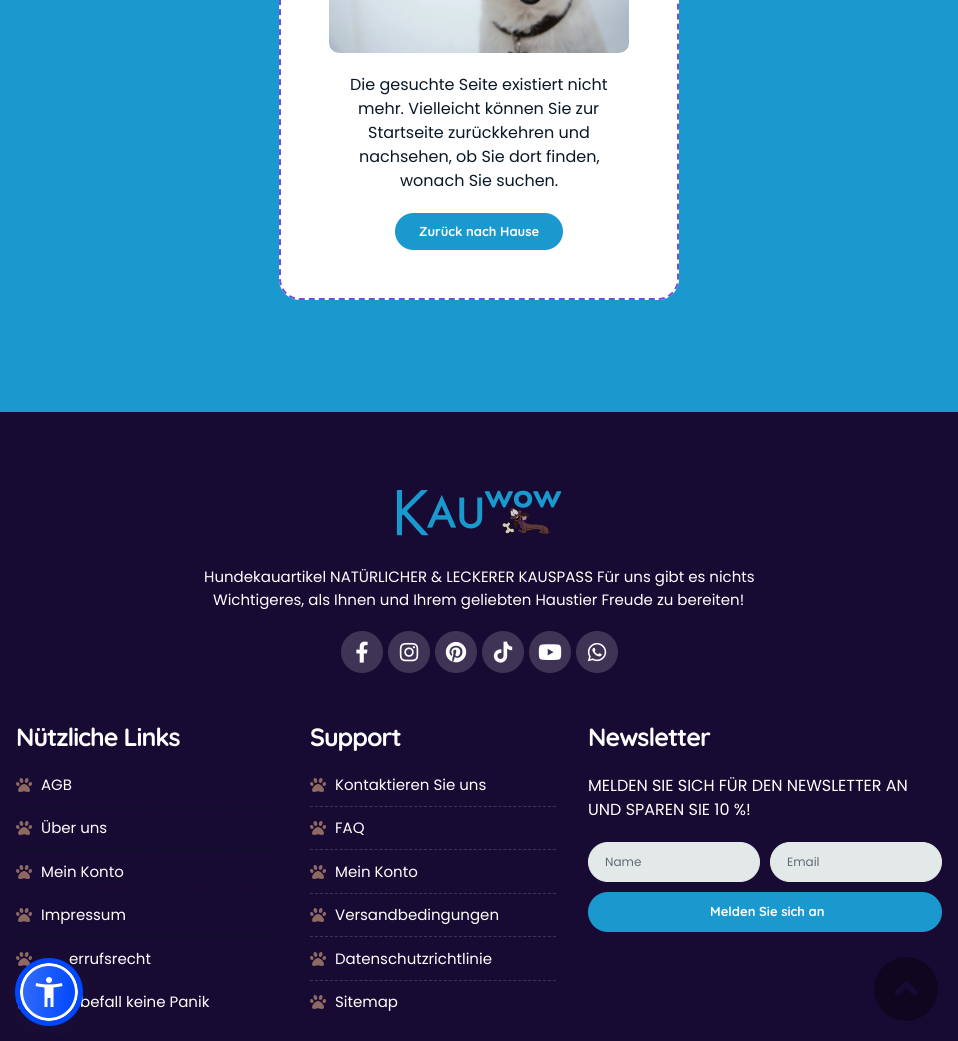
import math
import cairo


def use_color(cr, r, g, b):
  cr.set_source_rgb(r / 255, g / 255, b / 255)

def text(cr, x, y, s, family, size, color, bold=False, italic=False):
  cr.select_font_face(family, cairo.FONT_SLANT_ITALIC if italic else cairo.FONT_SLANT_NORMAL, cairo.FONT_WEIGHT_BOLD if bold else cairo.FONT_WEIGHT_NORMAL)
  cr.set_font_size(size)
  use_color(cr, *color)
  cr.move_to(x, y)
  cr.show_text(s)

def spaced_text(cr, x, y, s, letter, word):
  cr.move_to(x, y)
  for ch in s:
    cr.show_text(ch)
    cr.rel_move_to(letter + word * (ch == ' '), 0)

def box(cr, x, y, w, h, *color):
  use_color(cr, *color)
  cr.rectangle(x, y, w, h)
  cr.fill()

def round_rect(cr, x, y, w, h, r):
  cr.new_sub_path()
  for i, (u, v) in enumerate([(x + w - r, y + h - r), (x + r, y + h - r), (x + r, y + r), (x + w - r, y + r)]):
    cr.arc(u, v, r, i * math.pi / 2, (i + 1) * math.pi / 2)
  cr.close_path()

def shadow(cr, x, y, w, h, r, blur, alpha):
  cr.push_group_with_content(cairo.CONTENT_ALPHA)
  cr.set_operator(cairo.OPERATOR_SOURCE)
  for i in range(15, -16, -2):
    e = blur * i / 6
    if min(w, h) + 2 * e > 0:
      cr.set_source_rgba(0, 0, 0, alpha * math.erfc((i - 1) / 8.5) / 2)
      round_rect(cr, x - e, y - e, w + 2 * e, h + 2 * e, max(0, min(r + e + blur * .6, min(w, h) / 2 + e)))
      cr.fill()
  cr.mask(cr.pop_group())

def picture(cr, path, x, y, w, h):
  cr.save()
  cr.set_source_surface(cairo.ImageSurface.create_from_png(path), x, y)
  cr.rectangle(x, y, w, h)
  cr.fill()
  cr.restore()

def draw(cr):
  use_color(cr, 25, 153, 206)
  cr.paint()
  use_color(cr, 255, 255, 255)
  round_rect(cr, 279, -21, 400, 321, 21)
  cr.fill()
  cr.new_path()
  cr.move_to(300, -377)
  cr.line_to(658, -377)
  cr.curve_to(669, -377, 678, -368, 678, -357)
  cr.line_to(678, 279)
  cr.curve_to(678, 290, 669, 299, 658, 299)
  cr.line_to(300, 299)
  cr.curve_to(289, 299, 280, 290, 280, 279)
  cr.line_to(280, -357)
  cr.curve_to(280, -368, 289, -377, 300, -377)
  cr.close_path()
  use_color(cr, 119, 74, 216)
  cr.set_dash([6, 4])
  cr.stroke()
  picture(cr, "img_01.png", 329, 0, 300, 53)
  use_color(cr, 25, 153, 206)
  round_rect(cr, 395, 213, 168, 37, 18.5)
  cr.fill()
  box(cr, 0, 412, 958, 629, 24, 11, 51)
  picture(cr, "img_02.png", 396, 490, 166, 46)
  use_color(cr, 63, 52, 86)
  cr.arc(362, 652, 21, 0, 2 * math.pi)
  cr.fill()
  picture(cr, "img_03.png", 356, 641, 12, 22)
  cr.arc(409, 652, 21, 0, 2 * math.pi)
  cr.fill()
  picture(cr, "img_04.png", 399, 642, 20, 20)
  cr.arc(456, 652, 21, 0, 2 * math.pi)
  cr.fill()
  picture(cr, "img_05.png", 445, 642, 22, 21)
  cr.arc(503, 652, 21, 0, 2 * math.pi)
  cr.fill()
  picture(cr, "img_06.png", 493, 641, 20, 22)
  cr.arc(550, 652, 21, 0, 2 * math.pi)
  cr.fill()
  picture(cr, "img_07.png", 538, 644, 24, 16)
  cr.arc(597, 652, 21, 0, 2 * math.pi)
  cr.fill()
  picture(cr, "img_08.png", 587, 642, 20, 20)
  picture(cr, "img_09.png", 16, 778, 16, 14)
  cr.new_path()
  cr.move_to(16, 806.5)
  cr.line_to(278, 806.5)
  use_color(cr, 9, 23, 39)
  cr.set_line_width(1)
  cr.set_dash([3, 1.98])
  cr.stroke()
  picture(cr, "img_09.png", 16, 821, 16, 14)
  cr.new_path()
  cr.move_to(16, 849.5)
  cr.line_to(278, 849.5)
  cr.stroke()
  picture(cr, "img_09.png", 16, 865, 16, 14)
  cr.new_path()
  cr.move_to(16, 893.5)
  cr.line_to(278, 893.5)
  cr.stroke()
  picture(cr, "img_09.png", 16, 908, 16, 14)
  cr.new_path()
  cr.move_to(16, 936.5)
  cr.line_to(278, 936.5)
  cr.stroke()
  picture(cr, "img_09.png", 16, 952, 16, 14)
  cr.new_path()
  cr.move_to(16, 980.5)
  cr.line_to(278, 980.5)
  cr.stroke()
  picture(cr, "img_10.png", 16, 995, 10, 14)
  picture(cr, "img_09.png", 310, 778, 16, 14)
  cr.new_path()
  cr.move_to(310, 806.5)
  cr.line_to(556, 806.5)
  use_color(cr, 63, 52, 86)
  cr.set_dash([3, 1.96])
  cr.stroke()
  picture(cr, "img_09.png", 310, 821, 16, 14)
  cr.new_path()
  cr.move_to(310, 849.5)
  cr.line_to(556, 849.5)
  cr.stroke()
  picture(cr, "img_09.png", 310, 865, 16, 14)
  cr.new_path()
  cr.move_to(310, 893.5)
  cr.line_to(556, 893.5)
  cr.stroke()
  picture(cr, "img_09.png", 310, 908, 16, 14)
  cr.new_path()
  cr.move_to(310, 936.5)
  cr.line_to(556, 936.5)
  cr.stroke()
  picture(cr, "img_09.png", 310, 952, 16, 14)
  cr.new_path()
  cr.move_to(310, 980.5)
  cr.line_to(556, 980.5)
  cr.stroke()
  picture(cr, "img_09.png", 310, 995, 16, 14)
  use_color(cr, 227, 233, 233)
  round_rect(cr, 588.5, 842.5, 171, 39, 19.5)
  cr.fill_preserve()
  cr.set_dash([])
  cr.stroke()
  round_rect(cr, 770.5, 842.5, 171, 39, 19.5)
  cr.fill_preserve()
  cr.stroke()
  use_color(cr, 25, 153, 206)
  round_rect(cr, 588, 892, 354, 40, 20)
  cr.fill()
  use_color(cr, 93, 100, 148)
  shadow(cr, 20, 965, 58, 58, 29, 2, 0.2)
  use_color(cr, 37, 44, 97)
  shadow(cr, 20, 968, 58, 58, 29, 7.5, 0.15)
  cr.save()
  round_rect(cr, 20, 963, 58, 58, 29)
  cr.clip()
  gradient = cairo.LinearGradient(21, 989, 77, 995)
  gradient.add_color_stop_rgba(0, 0.196, 0.424, 1, 1)
  gradient.add_color_stop_rgba(1, 0, 0.282, 1, 1)
  cr.set_source(gradient)
  cr.rectangle(23, 966, 52, 52)
  cr.fill()
  cr.restore()
  cr.arc(49, 992, 27.5, 0, 2 * math.pi)
  use_color(cr, 255, 255, 255)
  cr.set_line_width(3)
  cr.stroke()
  picture(cr, "img_12.png", 874, 957, 64, 64)
  text(cr, 350, 90, "Die gesuchte Seite existiert nicht", "Poppins", 16, (9, 23, 39))
  text(cr, 358, 114, "mehr. Vielleicht können Sie zur", "Poppins", 16, (9, 23, 39))
  text(cr, 368, 138, "Startseite zurückkehren und", "Poppins", 16, (9, 23, 39))
  text(cr, 359, 162, "nachsehen, ob Sie dort finden,", "Poppins", 16, (9, 23, 39))
  text(cr, 400, 186, "wonach Sie suchen.", "Poppins", 16, (9, 23, 39))
  text(cr, 419, 236, "Zurück nach Hause", "Quicksand", 13, (255, 255, 255), bold=True)
  text(cr, 204, 582, "Hundekauartikel NATÜRLICHER & LECKERER KAUSPASS Für uns gibt es nichts", "Poppins", 15, (255, 255, 255))
  text(cr, 213, 605, "Wichtigeres, als Ihnen und Ihrem geliebten Haustier Freude zu bereiten!", "Poppins", 15, (255, 255, 255))
  cr.select_font_face("Quicksand", cairo.FONT_SLANT_NORMAL, cairo.FONT_WEIGHT_BOLD)
  cr.set_font_size(25)
  spaced_text(cr, 16, 746, "Nützliche Links", -1, 0)
  text(cr, 41, 790, "AGB", "Poppins", 15, (255, 255, 255))
  text(cr, 41, 833, "Über uns", "Poppins", 15, (255, 255, 255))
  text(cr, 41, 877, "Mein Konto", "Poppins", 15, (255, 255, 255))
  text(cr, 41, 920, "Impressum", "Poppins", 15, (255, 255, 255))
  text(cr, 69, 964, "errufsrecht", "Poppins", 15, (255, 255, 255))
  text(cr, 80, 1007, "befall keine Panik", "Poppins", 15, (255, 255, 255))
  cr.select_font_face("Quicksand", cairo.FONT_SLANT_NORMAL, cairo.FONT_WEIGHT_BOLD)
  cr.set_font_size(25)
  spaced_text(cr, 310, 746, "Support", -1, 0)
  text(cr, 335, 790, "Kontaktieren Sie uns", "Poppins", 15, (255, 255, 255))
  text(cr, 335, 833, "FAQ", "Poppins", 15, (255, 255, 255))
  text(cr, 335, 877, "Mein Konto", "Poppins", 15, (255, 255, 255))
  text(cr, 335, 920, "Versandbedingungen", "Poppins", 15, (255, 255, 255))
  text(cr, 335, 964, "Datenschutzrichtlinie", "Poppins", 15, (255, 255, 255))
  text(cr, 335, 1007, "Sitemap", "Poppins", 15, (255, 255, 255))
  cr.select_font_face("Quicksand", cairo.FONT_SLANT_NORMAL, cairo.FONT_WEIGHT_BOLD)
  cr.set_font_size(25)
  spaced_text(cr, 588, 746, "Newsletter", -1, 0)
  text(cr, 588, 791, "MELDEN SIE SICH FÜR DEN NEWSLETTER AN", "Poppins", 16, (255, 255, 255))
  text(cr, 588, 815, "UND SPAREN SIE 10 %!", "Poppins", 16, (255, 255, 255))
  text(cr, 605, 866, "Name", "Poppins", 12, (96, 107, 117))
  text(cr, 787, 866, "Email", "Poppins", 12, (96, 107, 117))
  text(cr, 710, 916, "Melden Sie sich an", "Quicksand", 13, (255, 255, 255), bold=True)
  cr.new_path()
  cr.arc(49, 992, 31.5, 0, 2 * math.pi)
  use_color(cr, 0, 72, 255)
  cr.set_line_width(5)
  cr.stroke()
  picture(cr, "img_11.png", 35, 977, 28, 30)


surface = cairo.ImageSurface(cairo.FORMAT_RGB24, 958, 1041)
cr = cairo.Context(surface)
options = cairo.FontOptions()
options.set_hint_metrics(cairo.HINT_METRICS_OFF)
options.set_hint_style(cairo.HINT_STYLE_NONE)
cr.set_font_options(options)
cr.set_miter_limit(4)
draw(cr)
surface.write_to_png("out.png")
